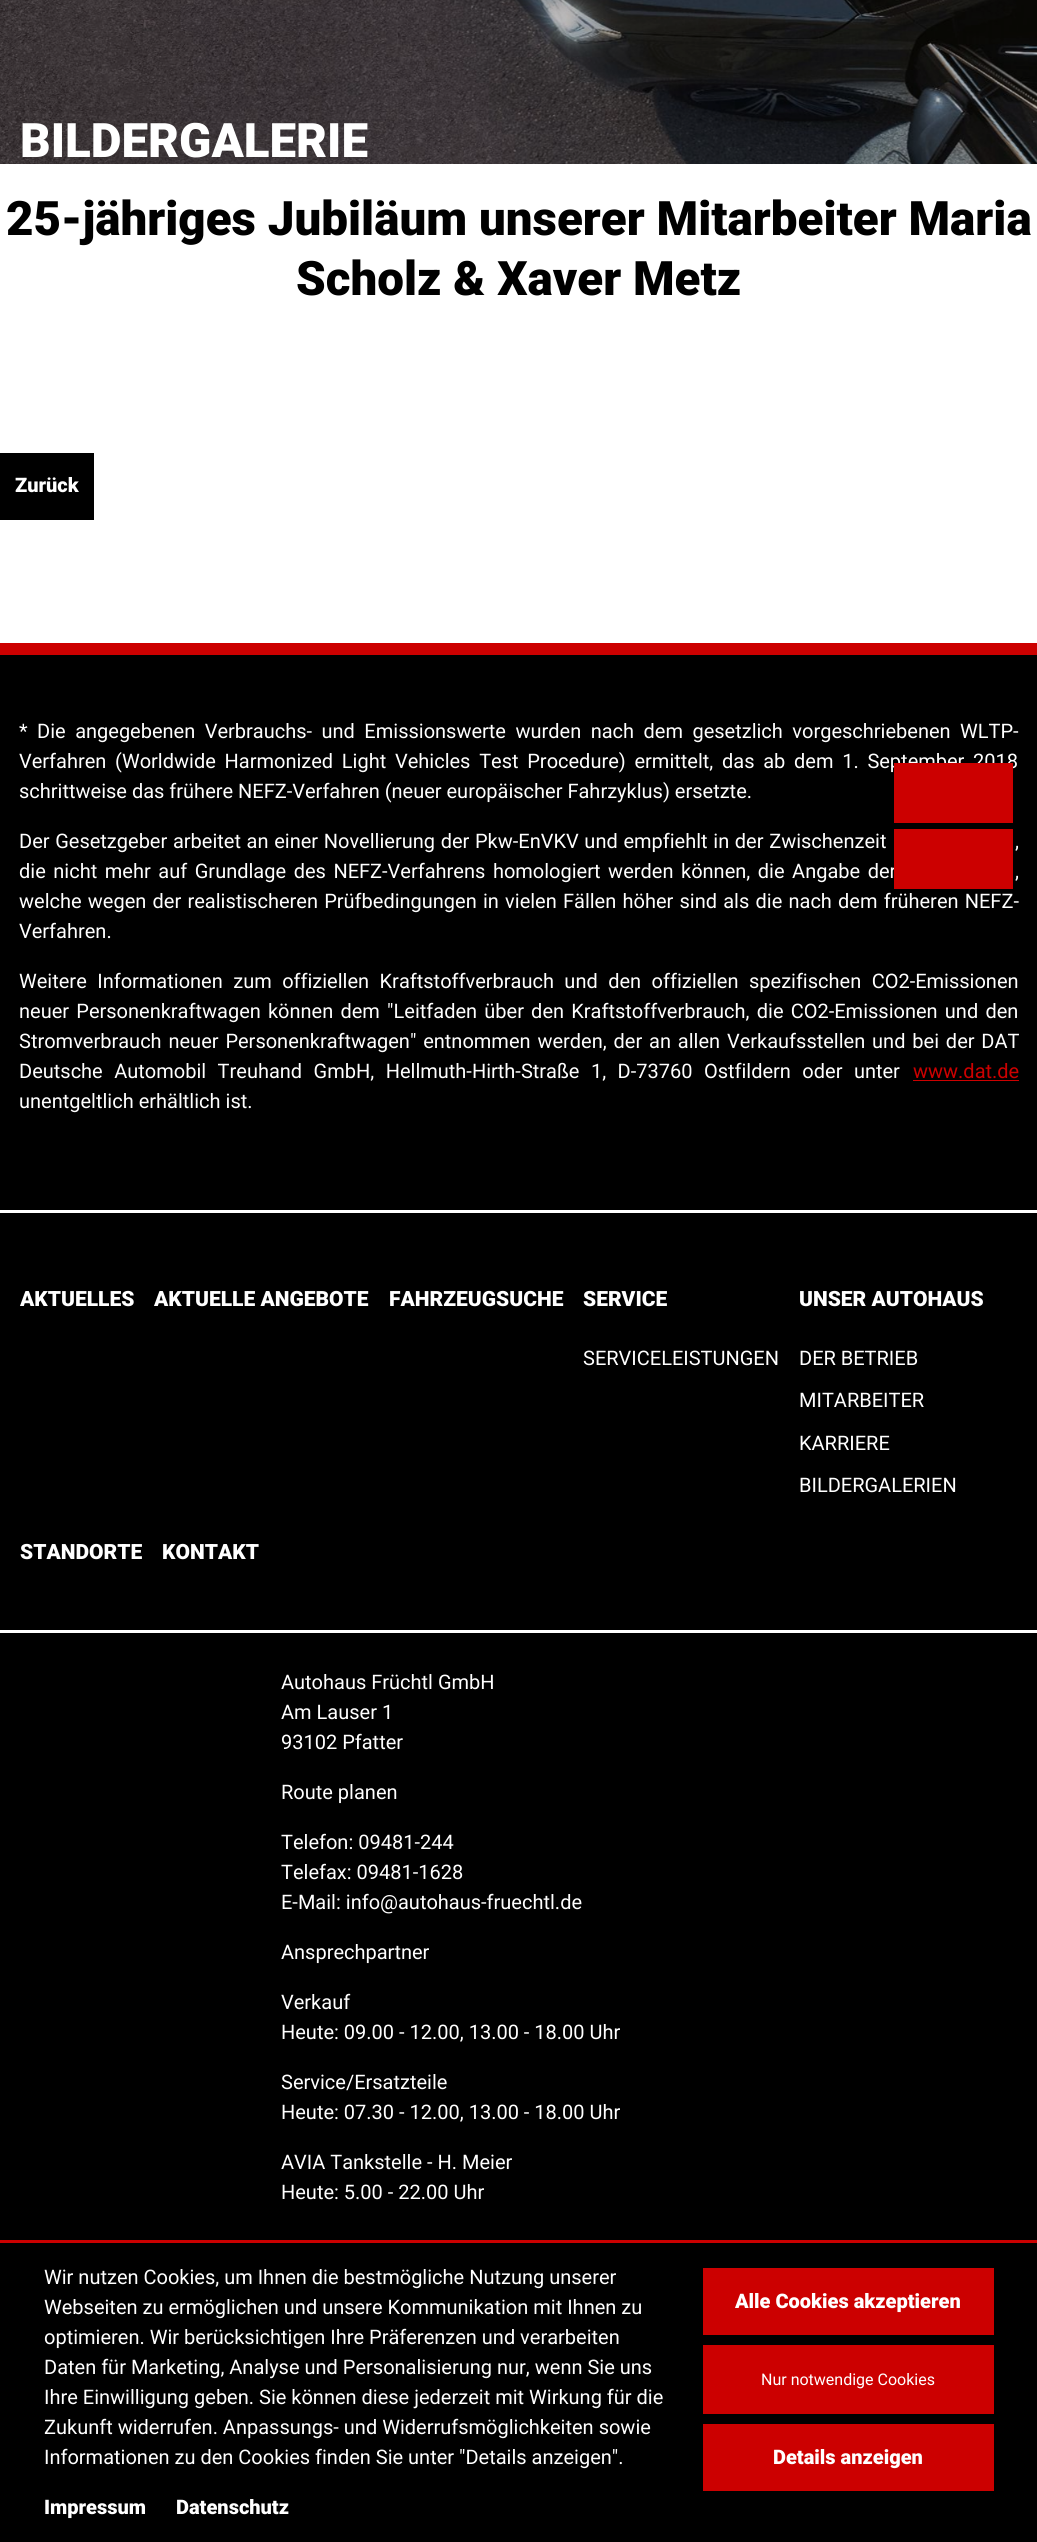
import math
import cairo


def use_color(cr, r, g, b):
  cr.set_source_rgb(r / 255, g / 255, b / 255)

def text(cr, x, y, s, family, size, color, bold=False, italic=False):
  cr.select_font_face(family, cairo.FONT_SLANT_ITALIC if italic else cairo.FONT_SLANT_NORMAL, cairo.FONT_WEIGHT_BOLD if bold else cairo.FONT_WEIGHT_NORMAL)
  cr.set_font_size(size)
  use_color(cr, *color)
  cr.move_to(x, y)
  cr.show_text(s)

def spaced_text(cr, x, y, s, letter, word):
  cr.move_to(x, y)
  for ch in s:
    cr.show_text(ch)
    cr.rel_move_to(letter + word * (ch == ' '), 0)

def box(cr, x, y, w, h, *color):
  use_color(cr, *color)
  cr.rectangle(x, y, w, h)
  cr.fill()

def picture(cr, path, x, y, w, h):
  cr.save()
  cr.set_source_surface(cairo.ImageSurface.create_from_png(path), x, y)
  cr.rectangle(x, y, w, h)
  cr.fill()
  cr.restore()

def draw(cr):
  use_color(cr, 255, 255, 255)
  cr.paint()
  picture(cr, "img_01.png", 0, 0, 1037, 164)
  box(cr, 0, 453, 94, 67, 0, 0, 0)
  box(cr, 0, 2243, 1037, 299, 0, 0, 0)
  box(cr, 0, 2240, 1037, 3, 204, 0, 0)
  box(cr, 703, 2268, 291, 67, 204, 0, 0)
  box(cr, 703, 2345, 291, 69, 204, 0, 0)
  box(cr, 703, 2424, 291, 67, 204, 0, 0)
  box(cr, 0, 655, 1037, 1585, 0, 0, 0)
  box(cr, 0, 643, 1037, 12, 204, 0, 0)
  box(cr, 913, 1080, 106, 1, 204, 0, 0)
  box(cr, 0, 1210, 1037, 3, 255, 255, 255)
  box(cr, 0, 1630, 1037, 3, 255, 255, 255)
  text(cr, 20, 157, "BILDERGALERIE", "Roboto Black", 47.5, (255, 255, 255))
  text(cr, 6, 235, "25-jähriges Jubiläum unserer Mitarbeiter Maria", "Roboto Black", 47.5, (0, 0, 0))
  text(cr, 296, 295, "Scholz & Xaver Metz", "Roboto Black", 47.5, (0, 0, 0))
  text(cr, 15, 492, "Zurück", "Roboto Black", 20, (255, 255, 255))
  text(cr, 44, 2284, "Wir nutzen Cookies, um Ihnen die bestmögliche Nutzung unserer", "Roboto", 20, (255, 255, 255))
  text(cr, 44, 2314, "Webseiten zu ermöglichen und unsere Kommunikation mit Ihnen zu", "Roboto", 20, (255, 255, 255))
  text(cr, 44, 2344, "optimieren. Wir berücksichtigen Ihre Präferenzen und verarbeiten", "Roboto", 20, (255, 255, 255))
  text(cr, 44, 2374, "Daten für Marketing, Analyse und Personalisierung nur, wenn Sie uns", "Roboto", 20, (255, 255, 255))
  text(cr, 44, 2404, "Ihre Einwilligung geben. Sie können diese jederzeit mit Wirkung für die", "Roboto", 20, (255, 255, 255))
  text(cr, 44, 2434, "Zukunft widerrufen. Anpassungs- und Widerrufsmöglichkeiten sowie", "Roboto", 20, (255, 255, 255))
  text(cr, 44, 2464, "Informationen zu den Cookies finden Sie unter \"Details anzeigen\".", "Roboto", 20, (255, 255, 255))
  text(cr, 44, 2514, "Impressum", "Roboto Black", 20, (255, 255, 255))
  text(cr, 176, 2514, "Datenschutz", "Roboto Black", 20, (255, 255, 255))
  text(cr, 735, 2308, "Alle Cookies akzeptieren", "Roboto Black", 20, (255, 255, 255))
  text(cr, 761, 2385, "Nur notwendige Cookies", "Roboto", 16, (255, 255, 255))
  text(cr, 773, 2464, "Details anzeigen", "Roboto Black", 20, (255, 255, 255))
  cr.select_font_face("Roboto")
  spaced_text(cr, 19, 738, "* Die angegebenen Verbrauchs- und Emissionswerte wurden nach dem gesetzlich vorgeschriebenen WLTP-", 0, 4.5)
  spaced_text(cr, 19, 768, "Verfahren (Worldwide Harmonized Light Vehicles Test Procedure) ermittelt, das ab dem 1. September 2018", 0, 3.75)
  box(cr, 894, 763, 119, 60, 204, 0, 0)
  text(cr, 19, 798, "schrittweise das frühere NEFZ-Verfahren (neuer europäischer Fahrzyklus) ersetzte.", "Roboto", 20, (255, 255, 255))
  spaced_text(cr, 19, 848, "Der Gesetzgeber arbeitet an einer Novellierung der Pkw-EnVKV und empfiehlt in der Zwischenzeit", 0, 0.7)
  spaced_text(cr, 1015, 848, ",", 0, 0.7)
  spaced_text(cr, 19, 878, "die nicht mehr auf Grundlage des NEFZ-Verfahrens homologiert werden können, die Angabe der", 0, 2.6)
  box(cr, 894, 829, 119, 60, 204, 0, 0)
  use_color(cr, 255, 255, 255)
  spaced_text(cr, 1015, 878, ",", 0, 2.6)
  spaced_text(cr, 19, 908, "welche wegen der realistischeren Prüfbedingungen in vielen Fällen höher sind als die nach dem früheren NEFZ-", 0, 1.25)
  text(cr, 19, 938, "Verfahren.", "Roboto", 20, (255, 255, 255))
  spaced_text(cr, 19, 988, "Weitere Informationen zum offiziellen Kraftstoffverbrauch und den offiziellen spezifischen CO2-Emissionen", 0, 5.5)
  spaced_text(cr, 19, 1018, "neuer Personenkraftwagen können dem \"Leitfaden über den Kraftstoffverbrauch, die CO2-Emissionen und den", 0, 2.25)
  spaced_text(cr, 19, 1048, "Stromverbrauch neuer Personenkraftwagen\" entnommen werden, der an allen Verkaufsstellen und bei der DAT", 0, 1.9)
  spaced_text(cr, 19, 1078, "Deutsche Automobil Treuhand GmbH, Hellmuth-Hirth-Straße 1, D-73760 Ostfildern oder unter", 0, 6.5)
  text(cr, 913, 1078, "www.dat.de", "Roboto", 20, (204, 0, 0))
  text(cr, 19, 1108, "unentgeltlich erhältlich ist.", "Roboto", 20, (255, 255, 255))
  text(cr, 20, 1306, "AKTUELLES", "Roboto Black", 21, (255, 255, 255))
  text(cr, 154, 1306, "AKTUELLE ANGEBOTE", "Roboto Black", 21, (255, 255, 255))
  text(cr, 389, 1306, "FAHRZEUGSUCHE", "Roboto Black", 21, (255, 255, 255))
  text(cr, 583, 1306, "SERVICE", "Roboto Black", 21, (255, 255, 255))
  text(cr, 583, 1365, "SERVICELEISTUNGEN", "Roboto", 20, (255, 255, 255))
  text(cr, 799, 1306, "UNSER AUTOHAUS", "Roboto Black", 21, (255, 255, 255))
  text(cr, 799, 1365, "DER BETRIEB", "Roboto", 20, (255, 255, 255))
  text(cr, 799, 1407, "MITARBEITER", "Roboto", 20, (255, 255, 255))
  text(cr, 799, 1450, "KARRIERE", "Roboto", 20, (255, 255, 255))
  text(cr, 799, 1492, "BILDERGALERIEN", "Roboto", 20, (255, 255, 255))
  text(cr, 20, 1559, "STANDORTE", "Roboto Black", 21, (255, 255, 255))
  text(cr, 162, 1559, "KONTAKT", "Roboto Black", 21, (255, 255, 255))
  text(cr, 281, 1689, "Autohaus Früchtl GmbH", "Roboto", 20, (255, 255, 255))
  text(cr, 281, 1719, "Am Lauser 1", "Roboto", 20, (255, 255, 255))
  text(cr, 281, 1749, "93102 Pfatter", "Roboto", 20, (255, 255, 255))
  text(cr, 281, 1799, "Route planen", "Roboto", 20, (255, 255, 255))
  text(cr, 281, 1849, "Telefon: 09481-244", "Roboto", 20, (255, 255, 255))
  text(cr, 281, 1879, "Telefax: 09481-1628", "Roboto", 20, (255, 255, 255))
  text(cr, 281, 1909, "E-Mail: info@autohaus-fruechtl.de", "Roboto", 20, (255, 255, 255))
  text(cr, 281, 1959, "Ansprechpartner", "Roboto", 20, (255, 255, 255))
  text(cr, 281, 2009, "Verkauf", "Roboto", 20, (255, 255, 255))
  text(cr, 281, 2039, "Heute: 09.00 - 12.00, 13.00 - 18.00 Uhr", "Roboto", 20, (255, 255, 255))
  text(cr, 281, 2089, "Service/Ersatzteile", "Roboto", 20, (255, 255, 255))
  text(cr, 281, 2119, "Heute: 07.30 - 12.00, 13.00 - 18.00 Uhr", "Roboto", 20, (255, 255, 255))
  text(cr, 281, 2169, "AVIA Tankstelle - H. Meier", "Roboto", 20, (255, 255, 255))
  text(cr, 281, 2199, "Heute: 5.00 - 22.00 Uhr", "Roboto", 20, (255, 255, 255))


surface = cairo.ImageSurface(cairo.FORMAT_RGB24, 1037, 2542)
cr = cairo.Context(surface)
options = cairo.FontOptions()
options.set_hint_metrics(cairo.HINT_METRICS_OFF)
options.set_hint_style(cairo.HINT_STYLE_NONE)
cr.set_font_options(options)
cr.set_miter_limit(4)
draw(cr)
surface.write_to_png("out.png")
